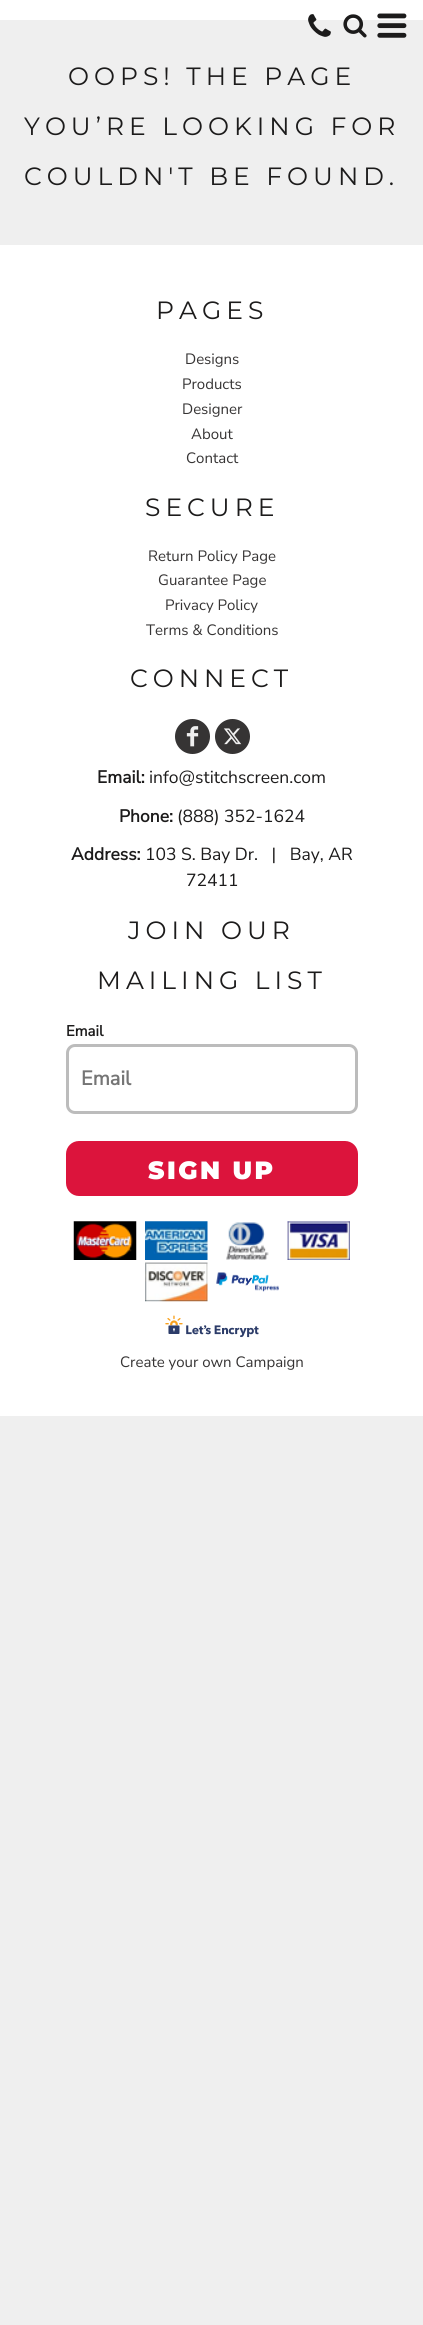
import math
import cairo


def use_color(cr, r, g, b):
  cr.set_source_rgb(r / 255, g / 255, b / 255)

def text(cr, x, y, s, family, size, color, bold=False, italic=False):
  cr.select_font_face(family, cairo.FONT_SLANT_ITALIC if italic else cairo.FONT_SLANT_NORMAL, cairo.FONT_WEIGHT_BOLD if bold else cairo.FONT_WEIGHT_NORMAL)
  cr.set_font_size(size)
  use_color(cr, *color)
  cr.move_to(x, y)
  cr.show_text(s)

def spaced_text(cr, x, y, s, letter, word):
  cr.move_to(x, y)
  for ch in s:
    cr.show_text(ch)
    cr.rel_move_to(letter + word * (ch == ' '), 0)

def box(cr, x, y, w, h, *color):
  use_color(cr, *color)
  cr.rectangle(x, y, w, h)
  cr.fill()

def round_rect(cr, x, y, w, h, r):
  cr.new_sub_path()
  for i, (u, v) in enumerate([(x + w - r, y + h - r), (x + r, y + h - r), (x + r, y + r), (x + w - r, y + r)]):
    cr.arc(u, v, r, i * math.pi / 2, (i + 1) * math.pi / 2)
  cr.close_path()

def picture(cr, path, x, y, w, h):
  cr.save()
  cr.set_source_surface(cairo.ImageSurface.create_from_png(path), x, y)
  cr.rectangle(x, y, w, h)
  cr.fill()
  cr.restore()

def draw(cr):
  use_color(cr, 239, 239, 239)
  cr.paint()
  box(cr, 0, 0, 423, 20, 255, 255, 255)
  picture(cr, "img_01.png", 343, 14, 24, 24)
  picture(cr, "img_02.png", 377, 13, 30, 25)
  box(cr, 0, 245, 423, 1171, 255, 255, 255)
  use_color(cr, 54, 52, 52)
  cr.arc(192.5, 736.5, 17.5, 0, 2 * math.pi)
  cr.fill()
  picture(cr, "img_03.png", 186, 726, 13, 21)
  cr.arc(232.5, 736.5, 17.5, 0, 2 * math.pi)
  cr.fill()
  picture(cr, "img_04.png", 223, 728, 19, 17)
  round_rect(cr, 67.5, 1045.5, 289, 67, 7.5)
  use_color(cr, 188, 188, 188)
  cr.set_line_width(3)
  cr.stroke()
  use_color(cr, 220, 20, 60)
  round_rect(cr, 67.5, 1142.5, 289, 52, 11.5)
  cr.fill_preserve()
  cr.stroke()
  picture(cr, "img_05.png", 73, 1221, 64, 39)
  picture(cr, "img_06.png", 145, 1221, 63, 39)
  picture(cr, "img_07.png", 226, 1222, 43, 38)
  picture(cr, "img_08.png", 287, 1221, 63, 39)
  picture(cr, "img_09.png", 145, 1262, 63, 40)
  picture(cr, "img_10.png", 216, 1272, 63, 20)
  picture(cr, "img_11.png", 165, 1315, 94, 23)
  text(cr, 305, 41, ";", "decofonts", 29, (28, 27, 27))
  cr.select_font_face("Montserrat")
  cr.set_font_size(25)
  spaced_text(cr, 68, 85, "OOPS! THE PAGE", 5, 0)
  spaced_text(cr, 24, 135, "YOU’RE LOOKING FOR", 5, 0)
  spaced_text(cr, 24, 185, "COULDN'T BE FOUND.", 5, 0)
  spaced_text(cr, 156, 319, "PAGES", 5, 0)
  text(cr, 185, 364, "Designs", "Nunito Sans ExtraLight", 15, (54, 52, 52))
  text(cr, 182, 389, "Products", "Nunito Sans ExtraLight", 15, (54, 52, 52))
  text(cr, 182, 414, "Designer", "Nunito Sans ExtraLight", 15, (54, 52, 52))
  text(cr, 191, 439, "About", "Nunito Sans ExtraLight", 15, (54, 52, 52))
  text(cr, 186, 463, "Contact", "Nunito Sans ExtraLight", 15, (54, 52, 52))
  cr.select_font_face("Montserrat")
  cr.set_font_size(25)
  use_color(cr, 28, 27, 27)
  spaced_text(cr, 145, 516, "SECURE", 5, 0)
  text(cr, 148, 561, "Return Policy Page", "Nunito Sans ExtraLight", 15, (54, 52, 52))
  text(cr, 158, 585, "Guarantee Page", "Nunito Sans ExtraLight", 15, (54, 52, 52))
  text(cr, 165, 610, "Privacy Policy", "Nunito Sans ExtraLight", 15, (54, 52, 52))
  text(cr, 146, 635, "Terms & Conditions", "Nunito Sans ExtraLight", 15, (54, 52, 52))
  cr.select_font_face("Montserrat")
  cr.set_font_size(25)
  use_color(cr, 28, 27, 27)
  spaced_text(cr, 130, 687, "CONNECT", 5, 0)
  text(cr, 97, 783, "Email:", "Nunito Sans", 17.5, (28, 27, 27), bold=True)
  text(cr, 149, 783, "info@stitchscreen.com", "Nunito Sans ExtraLight", 17.5, (28, 27, 27))
  text(cr, 119, 822, "Phone:", "Nunito Sans", 17.5, (28, 27, 27), bold=True)
  text(cr, 177, 822, "(888) 352-1624", "Nunito Sans ExtraLight", 17.5, (28, 27, 27))
  text(cr, 71, 860, "Address:", "Nunito Sans", 17.5, (28, 27, 27), bold=True)
  text(cr, 145, 860, "103 S. Bay Dr.   |   Bay, AR", "Nunito Sans ExtraLight", 17.5, (28, 27, 27))
  text(cr, 186, 886, "72411", "Nunito Sans ExtraLight", 17.5, (28, 27, 27))
  cr.select_font_face("Montserrat")
  cr.set_font_size(25)
  spaced_text(cr, 128, 939, "JOIN OUR", 5, 0)
  spaced_text(cr, 97, 989, "MAILING LIST", 5, 0)
  text(cr, 66, 1036, "Email", "Nunito Sans", 15, (28, 27, 27), bold=True)
  text(cr, 81, 1085, "Email", "Nunito Sans", 20, (117, 117, 117), bold=True)
  cr.select_font_face("Montserrat Black")
  cr.set_font_size(25)
  use_color(cr, 255, 255, 255)
  spaced_text(cr, 148, 1179, "SIGN UP", 2.5, 0)
  text(cr, 120, 1367, "Create your own Campaign", "Nunito Sans ExtraLight", 15, (54, 52, 52))


surface = cairo.ImageSurface(cairo.FORMAT_RGB24, 423, 2325)
cr = cairo.Context(surface)
options = cairo.FontOptions()
options.set_hint_metrics(cairo.HINT_METRICS_OFF)
options.set_hint_style(cairo.HINT_STYLE_NONE)
cr.set_font_options(options)
cr.set_miter_limit(4)
draw(cr)
surface.write_to_png("out.png")
